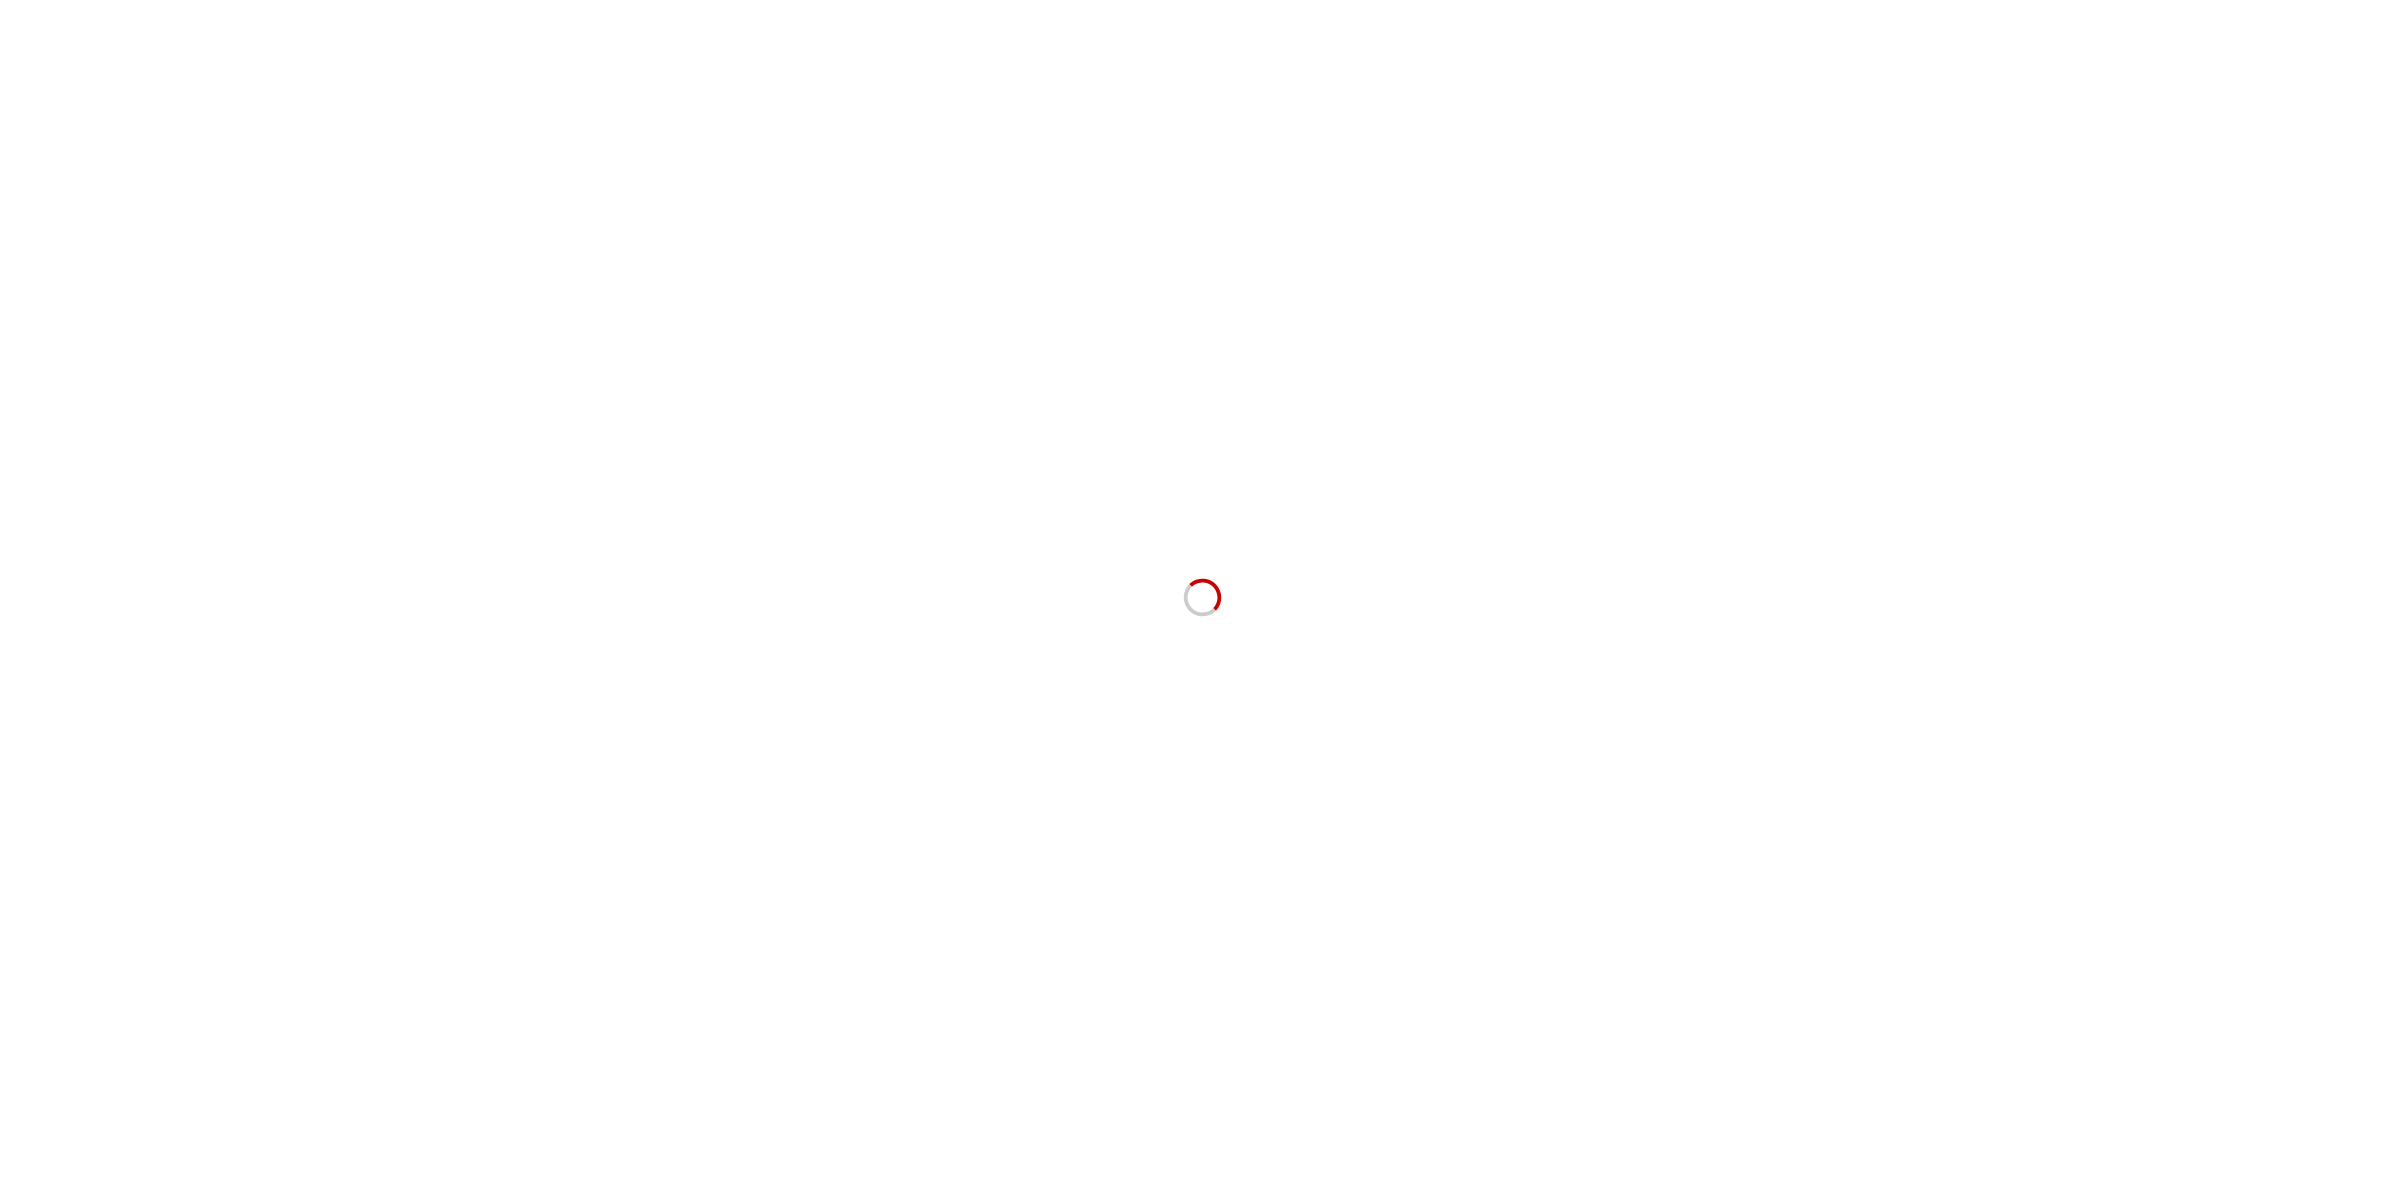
import math
import cairo


def use_color(cr, r, g, b):
  cr.set_source_rgb(r / 255, g / 255, b / 255)

def draw(cr):
  use_color(cr, 255, 255, 255)
  cr.paint()
  cr.new_path()
  cr.move_to(1190.5, 585.5)
  cr.curve_to(1193, 583, 1196, 581.5, 1199, 581)
  cr.curve_to(1215.5, 577.5, 1226, 597.5, 1214.5, 609.5)
  use_color(cr, 198, 2, 2)
  cr.set_line_width(3.8)
  cr.stroke()
  cr.new_path()
  cr.move_to(1214.5, 609.5)
  cr.curve_to(1212, 612, 1209, 613.5, 1206, 614)
  cr.curve_to(1189.5, 617.5, 1179, 597.5, 1190.5, 585.5)
  use_color(cr, 204, 204, 204)
  cr.stroke()


surface = cairo.ImageSurface(cairo.FORMAT_RGB24, 2404, 1194)
cr = cairo.Context(surface)
options = cairo.FontOptions()
options.set_hint_metrics(cairo.HINT_METRICS_OFF)
options.set_hint_style(cairo.HINT_STYLE_NONE)
cr.set_font_options(options)
cr.set_miter_limit(4)
draw(cr)
surface.write_to_png("out.png")
